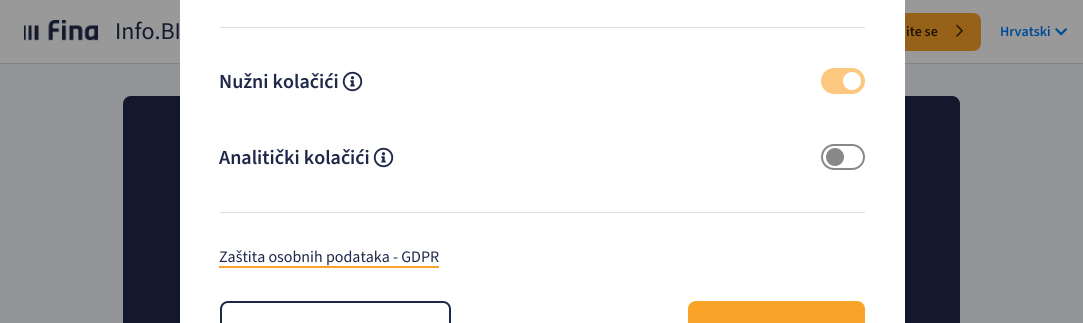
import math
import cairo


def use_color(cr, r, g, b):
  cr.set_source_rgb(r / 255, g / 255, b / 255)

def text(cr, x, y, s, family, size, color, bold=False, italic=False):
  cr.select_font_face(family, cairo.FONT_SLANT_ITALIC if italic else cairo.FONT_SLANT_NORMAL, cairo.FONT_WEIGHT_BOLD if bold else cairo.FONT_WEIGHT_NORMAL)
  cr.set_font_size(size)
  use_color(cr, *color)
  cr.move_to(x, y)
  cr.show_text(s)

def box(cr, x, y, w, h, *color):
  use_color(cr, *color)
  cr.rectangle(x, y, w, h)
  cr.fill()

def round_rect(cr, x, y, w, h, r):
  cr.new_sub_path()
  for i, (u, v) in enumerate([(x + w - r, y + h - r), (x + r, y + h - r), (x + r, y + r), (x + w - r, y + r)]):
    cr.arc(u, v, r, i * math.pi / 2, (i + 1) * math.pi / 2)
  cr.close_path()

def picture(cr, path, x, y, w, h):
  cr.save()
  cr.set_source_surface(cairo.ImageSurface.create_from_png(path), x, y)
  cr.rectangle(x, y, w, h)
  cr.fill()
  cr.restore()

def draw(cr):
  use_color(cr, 146, 148, 151)
  cr.paint()
  box(cr, 0, 0, 1083, 63, 153, 153, 153)
  box(cr, 0, 63, 1083, 1, 130, 130, 130)
  picture(cr, "img_01.png", 24, 20, 74, 21)
  use_color(cr, 150, 98, 25)
  round_rect(cr, 854, 14, 126, 36, 7)
  cr.fill_preserve()
  cr.stroke()
  picture(cr, "img_02.png", 956, 24, 7, 13)
  picture(cr, "img_03.png", 1055, 28, 12, 8)
  use_color(cr, 19, 24, 44)
  round_rect(cr, 123, 96, 837, 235, 8)
  cr.fill()
  box(cr, 180, 0, 725, 323, 255, 255, 255)
  box(cr, 220, 27, 645, 1, 221, 221, 221)
  picture(cr, "img_04.png", 342, 71, 21, 21)
  use_color(cr, 252, 200, 127)
  round_rect(cr, 821, 68, 44, 26, 13)
  cr.fill()
  use_color(cr, 255, 255, 255)
  cr.arc(852, 81, 9, 0, 2 * math.pi)
  cr.fill()
  picture(cr, "img_04.png", 373, 147, 21, 21)
  round_rect(cr, 822, 145, 42, 24, 12)
  use_color(cr, 136, 136, 136)
  cr.stroke()
  cr.arc(835, 157, 9, 0, 2 * math.pi)
  cr.fill()
  box(cr, 220, 212, 645, 1, 221, 221, 221)
  box(cr, 219, 266, 220, 2, 250, 163, 41)
  round_rect(cr, 221, 302, 229, 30, 7)
  use_color(cr, 32, 40, 73)
  cr.stroke()
  use_color(cr, 250, 163, 41)
  round_rect(cr, 689, 302, 175, 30, 7)
  cr.fill_preserve()
  cr.stroke()
  text(cr, 115, 39, "Info.BI", "Source Sans 3", 24, (19, 24, 44))
  text(cr, 906, 36, "ite se", "Source Sans 3 SemiBold", 14, (33, 20, 1))
  text(cr, 1000, 36, "Hrvatski", "Source Sans 3 SemiBold", 14, (0, 74, 153))
  text(cr, 219, 88, "Nužni kolačići", "Source Sans 3 SemiBold", 20, (32, 40, 73))
  text(cr, 219, 164, "Analitički kolačići", "Source Sans 3 SemiBold", 20, (32, 40, 73))
  text(cr, 219, 262, "Zaštita osobnih podataka - GDPR", "Source Sans 3", 16, (32, 40, 73))


surface = cairo.ImageSurface(cairo.FORMAT_RGB24, 1083, 323)
cr = cairo.Context(surface)
options = cairo.FontOptions()
options.set_hint_metrics(cairo.HINT_METRICS_OFF)
options.set_hint_style(cairo.HINT_STYLE_NONE)
cr.set_font_options(options)
cr.set_miter_limit(4)
draw(cr)
surface.write_to_png("out.png")
